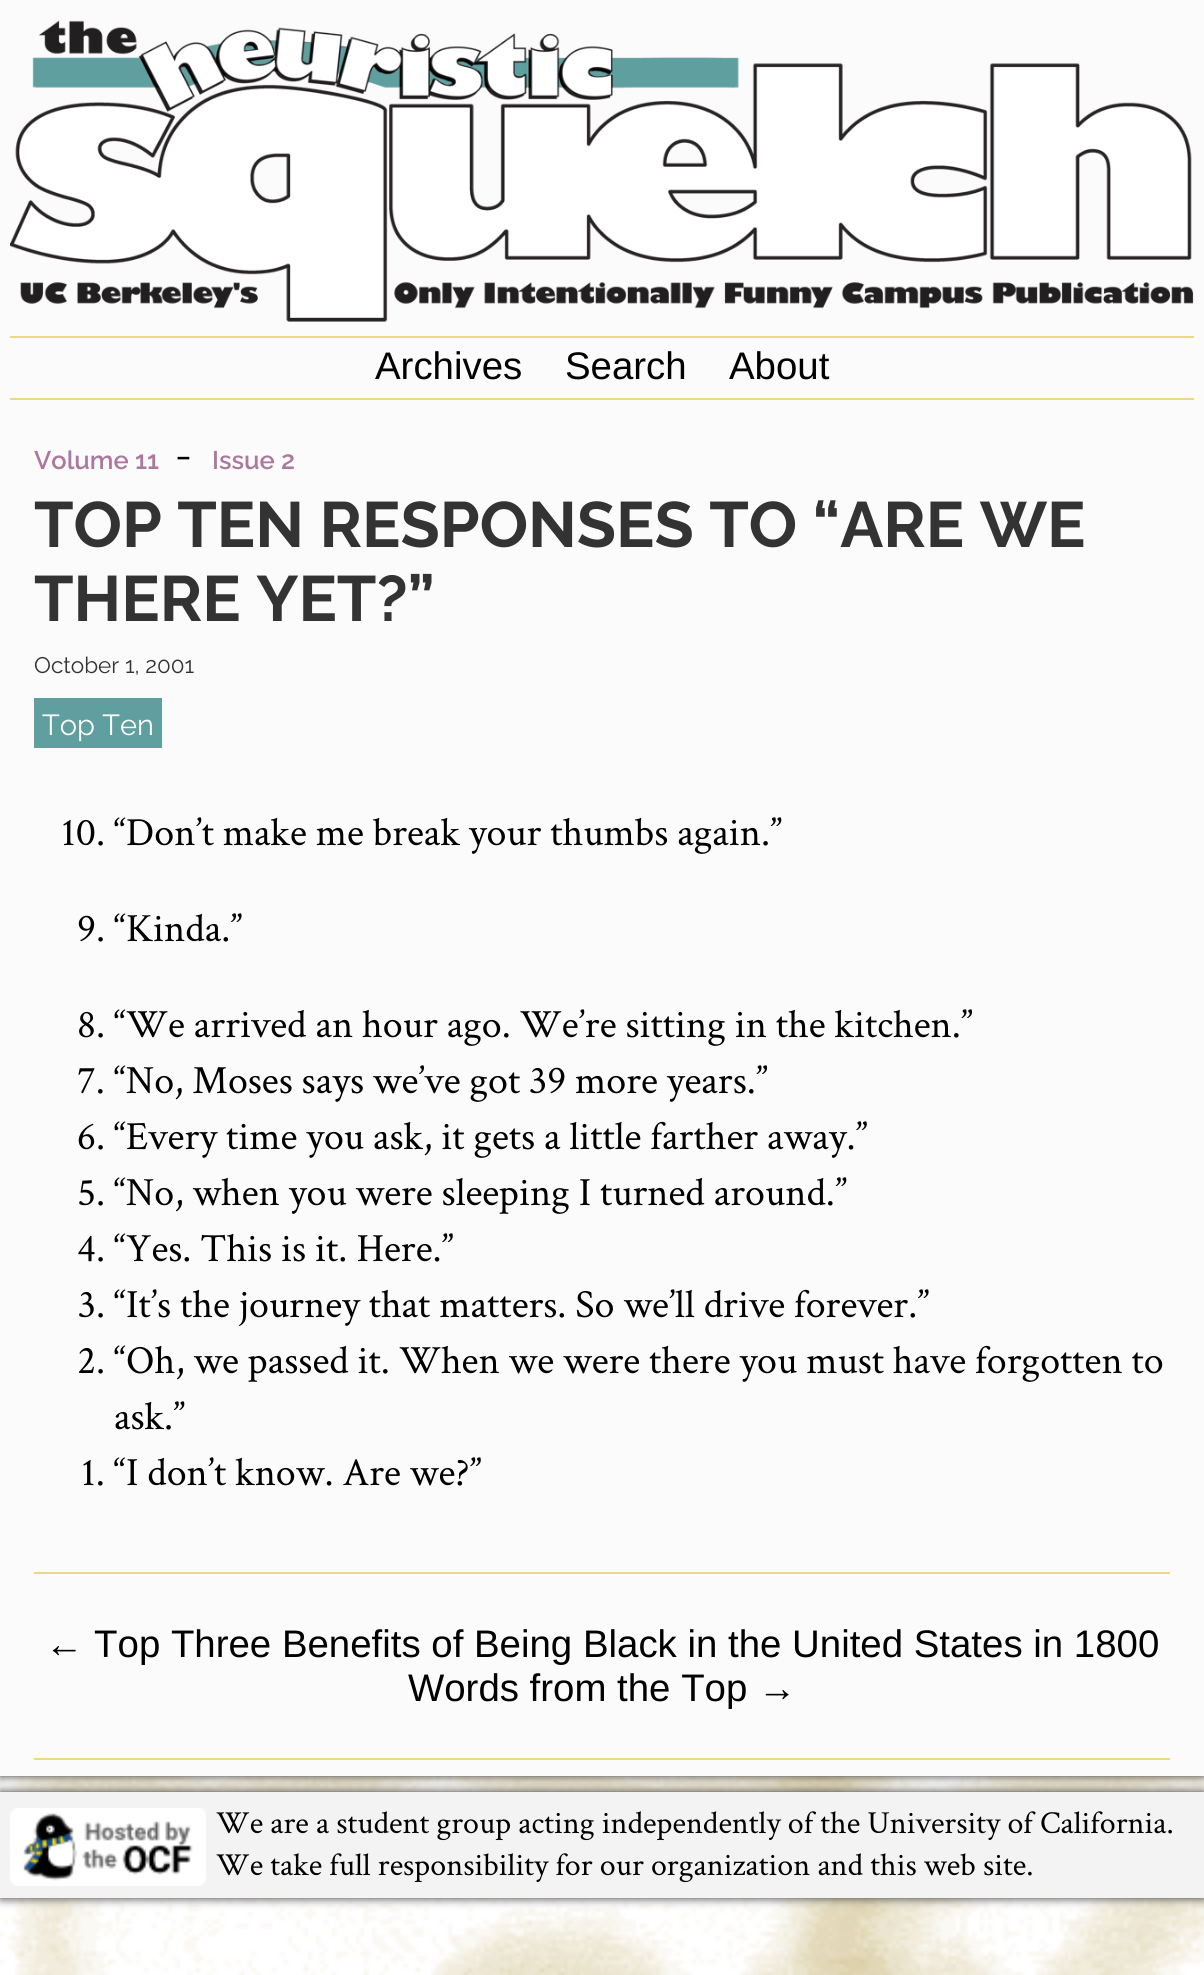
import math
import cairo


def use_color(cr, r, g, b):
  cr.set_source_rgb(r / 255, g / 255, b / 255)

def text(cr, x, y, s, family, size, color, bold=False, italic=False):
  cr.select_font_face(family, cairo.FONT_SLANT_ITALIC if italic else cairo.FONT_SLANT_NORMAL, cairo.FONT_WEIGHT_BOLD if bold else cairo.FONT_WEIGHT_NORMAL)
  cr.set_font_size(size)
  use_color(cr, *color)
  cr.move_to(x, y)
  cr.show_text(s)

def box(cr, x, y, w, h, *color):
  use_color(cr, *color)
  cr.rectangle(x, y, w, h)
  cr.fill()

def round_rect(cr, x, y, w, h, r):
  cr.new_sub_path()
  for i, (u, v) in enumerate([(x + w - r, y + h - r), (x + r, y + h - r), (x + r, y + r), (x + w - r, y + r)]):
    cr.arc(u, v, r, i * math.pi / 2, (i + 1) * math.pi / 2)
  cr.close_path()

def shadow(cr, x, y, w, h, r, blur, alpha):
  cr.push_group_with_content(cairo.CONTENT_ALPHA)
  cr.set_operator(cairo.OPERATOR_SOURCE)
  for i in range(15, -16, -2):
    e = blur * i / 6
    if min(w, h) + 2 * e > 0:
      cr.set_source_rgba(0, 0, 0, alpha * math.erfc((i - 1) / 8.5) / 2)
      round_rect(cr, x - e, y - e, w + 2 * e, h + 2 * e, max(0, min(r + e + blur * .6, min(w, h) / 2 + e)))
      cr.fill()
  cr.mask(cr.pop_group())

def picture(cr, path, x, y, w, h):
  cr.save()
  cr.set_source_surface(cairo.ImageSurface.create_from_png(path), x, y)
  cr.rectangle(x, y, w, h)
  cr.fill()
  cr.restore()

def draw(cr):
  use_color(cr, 255, 255, 255)
  cr.paint()
  picture(cr, "img_01.png", 0, 1776, 1204, 199)
  use_color(cr, 51, 51, 51)
  shadow(cr, 0, 0, 1204, 1776, 0, 5, 1)
  box(cr, 0, 0, 1204, 1776, 251, 251, 251)
  box(cr, 10, 336, 1184, 2, 235, 218, 129)
  picture(cr, "img_02.png", 10, 20, 1184, 302)
  box(cr, 10, 398, 1184, 2, 235, 218, 129)
  box(cr, 34, 1572, 1136, 2, 235, 218, 129)
  box(cr, 34, 698, 128, 50, 95, 159, 159)
  box(cr, 34, 1758, 1136, 2, 235, 218, 129)
  use_color(cr, 51, 51, 51)
  shadow(cr, 0, 1792, 1204, 106, 0, 5, 1)
  box(cr, 0, 1792, 1204, 106, 243, 243, 243)
  picture(cr, "img_03.png", 10, 1808, 196, 78)
  text(cr, 375, 379, "Archives", "Liberation Sans", 38.4, (0, 0, 0))
  text(cr, 565, 379, "Search", "Liberation Sans", 38.4, (0, 0, 0))
  text(cr, 729, 379, "About", "Liberation Sans", 38.4, (0, 0, 0))
  text(cr, 34, 469, "Volume 11", "Raleway SemiBold", 25.5, (172, 120, 158))
  text(cr, 175, 469, "-", "Raleway", 40, (0, 0, 0))
  text(cr, 212, 469, "Issue 2", "Raleway SemiBold", 25.5, (172, 120, 158))
  text(cr, 34, 547, "TOP TEN RESPONSES TO “ARE WE", "Raleway", 64, (51, 51, 51), bold=True)
  text(cr, 34, 621, "THERE YET?”", "Raleway", 64, (51, 51, 51), bold=True)
  text(cr, 34, 673, "October 1, 2001", "Raleway", 22.5, (51, 51, 51))
  text(cr, 42, 735, "Top Ten", "Raleway", 29, (255, 255, 255))
  text(cr, 61, 845, "10. “Don’t make me break your thumbs again.”", "Crimson Text", 40, (0, 0, 0))
  text(cr, 77, 941, "9. “Kinda.”", "Crimson Text", 40, (0, 0, 0))
  text(cr, 77, 1037, "8. “We arrived an hour ago. We’re sitting in the kitchen.”", "Crimson Text", 40, (0, 0, 0))
  text(cr, 77, 1093, "7. “No, Moses says we’ve got 39 more years.”", "Crimson Text", 40, (0, 0, 0))
  text(cr, 77, 1149, "6. “Every time you ask, it gets a little farther away.”", "Crimson Text", 40, (0, 0, 0))
  text(cr, 77, 1205, "5. “No, when you were sleeping I turned around.”", "Crimson Text", 40, (0, 0, 0))
  text(cr, 77, 1261, "4. “Yes. This is it. Here.”", "Crimson Text", 40, (0, 0, 0))
  text(cr, 78, 1317, "3. “It’s the journey that matters. So we’ll drive forever.”", "Crimson Text", 40, (0, 0, 0))
  text(cr, 77, 1373, "2. “Oh, we passed it. When we were there you must have forgotten to", "Crimson Text", 40, (0, 0, 0))
  text(cr, 114, 1429, "ask.”", "Crimson Text", 40, (0, 0, 0))
  text(cr, 81, 1485, "1. “I don’t know. Are we?”", "Crimson Text", 40, (0, 0, 0))
  text(cr, 45, 1657, "← Top Three Benefits of Being Black in the United States in 1800", "Liberation Sans", 38.4, (0, 0, 0))
  text(cr, 408, 1701, "Words from the Top →", "Liberation Sans", 38.4, (0, 0, 0))
  text(cr, 216, 1833, "We are a student group acting independently of the University of California.", "Crimson Text", 32, (0, 0, 0))
  text(cr, 216, 1875, "We take full responsibility for our organization and this web site.", "Crimson Text", 32, (0, 0, 0))


surface = cairo.ImageSurface(cairo.FORMAT_RGB24, 1204, 1975)
cr = cairo.Context(surface)
options = cairo.FontOptions()
options.set_hint_metrics(cairo.HINT_METRICS_OFF)
options.set_hint_style(cairo.HINT_STYLE_NONE)
cr.set_font_options(options)
cr.set_miter_limit(4)
draw(cr)
surface.write_to_png("out.png")
